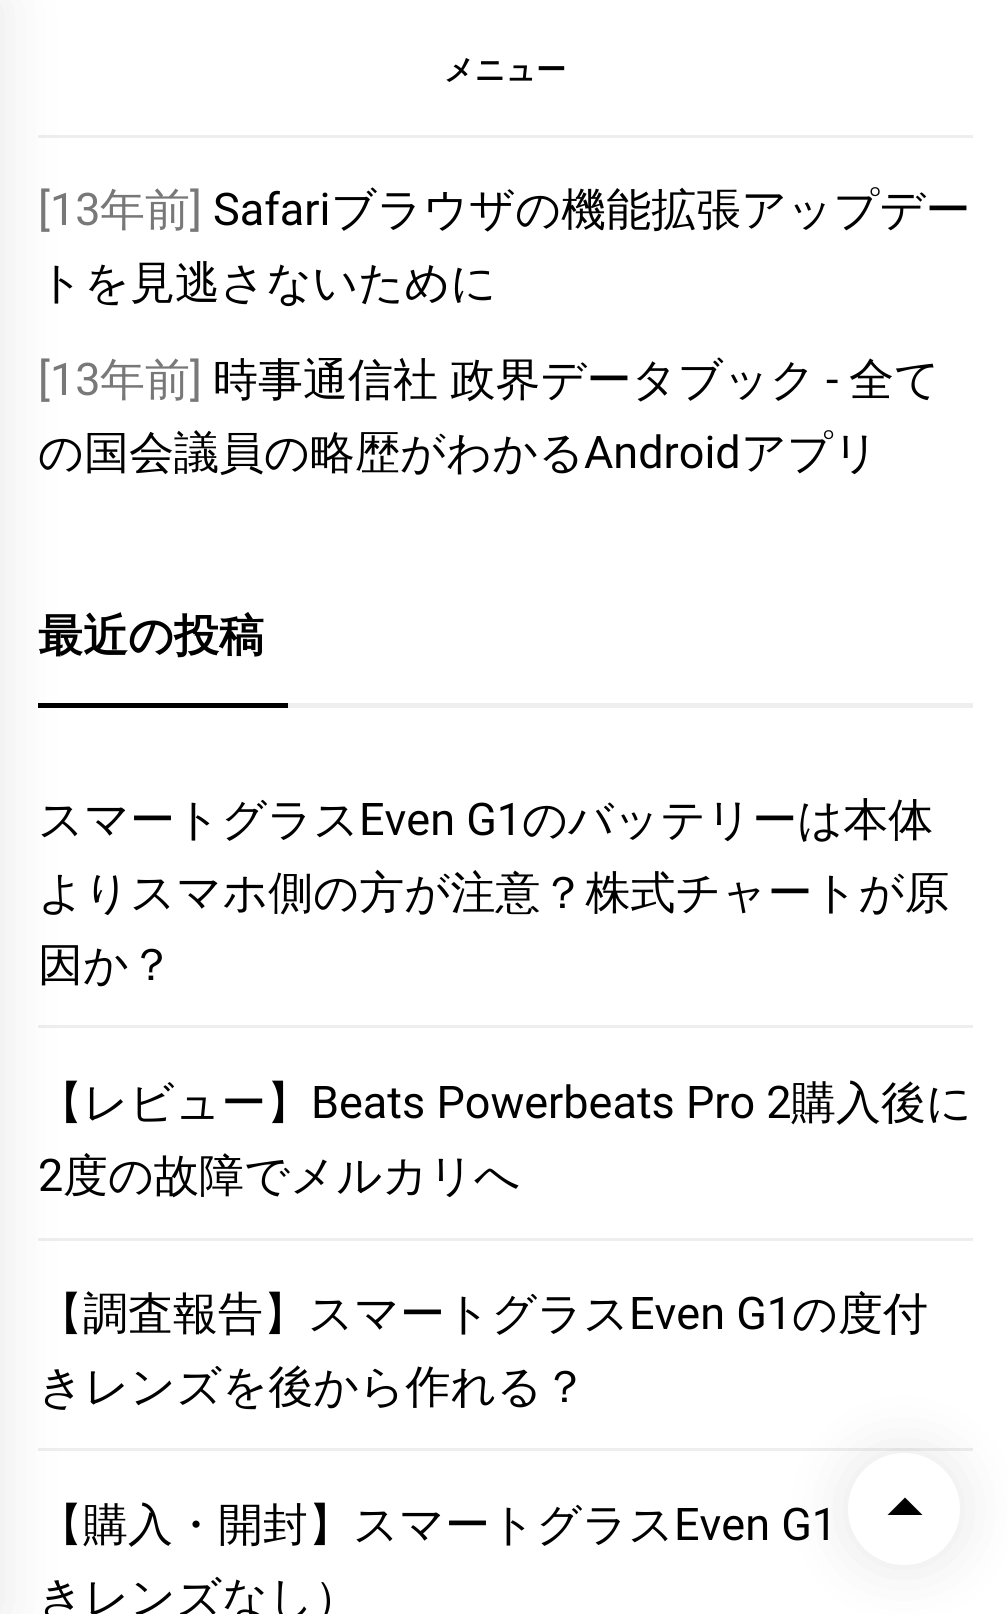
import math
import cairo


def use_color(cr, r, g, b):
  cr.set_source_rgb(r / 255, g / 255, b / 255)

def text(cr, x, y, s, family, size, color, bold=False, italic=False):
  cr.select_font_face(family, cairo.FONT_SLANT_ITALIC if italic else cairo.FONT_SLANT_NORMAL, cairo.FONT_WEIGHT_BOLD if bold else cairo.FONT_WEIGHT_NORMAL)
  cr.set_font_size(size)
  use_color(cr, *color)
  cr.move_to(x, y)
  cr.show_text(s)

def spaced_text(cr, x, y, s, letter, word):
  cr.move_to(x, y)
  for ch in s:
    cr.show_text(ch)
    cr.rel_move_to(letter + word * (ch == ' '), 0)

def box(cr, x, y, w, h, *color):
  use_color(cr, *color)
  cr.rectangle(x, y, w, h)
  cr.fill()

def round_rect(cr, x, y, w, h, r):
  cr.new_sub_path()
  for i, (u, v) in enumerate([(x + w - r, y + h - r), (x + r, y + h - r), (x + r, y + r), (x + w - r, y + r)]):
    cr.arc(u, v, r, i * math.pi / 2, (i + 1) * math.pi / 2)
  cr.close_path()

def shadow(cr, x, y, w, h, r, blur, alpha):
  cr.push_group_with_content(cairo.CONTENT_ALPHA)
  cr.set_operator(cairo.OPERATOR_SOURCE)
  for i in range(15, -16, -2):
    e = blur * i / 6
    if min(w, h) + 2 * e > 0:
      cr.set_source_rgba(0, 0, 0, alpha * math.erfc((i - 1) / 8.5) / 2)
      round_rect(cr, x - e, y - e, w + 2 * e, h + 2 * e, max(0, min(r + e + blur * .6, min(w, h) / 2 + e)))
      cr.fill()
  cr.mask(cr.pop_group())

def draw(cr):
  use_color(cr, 255, 255, 255)
  cr.paint()
  box(cr, 38, 135, 935, 3, 238, 238, 238)
  box(cr, 38, 703, 250, 5, 0, 0, 0)
  box(cr, 38, 1025, 935, 3, 238, 238, 238)
  box(cr, 38, 1238, 935, 3, 238, 238, 238)
  box(cr, 38, 1448, 935, 3, 238, 238, 238)
  use_color(cr, 0, 0, 0)
  shadow(cr, -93, 0, 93, 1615, 0, 31, 0.1)
  box(cr, 288, 703, 685, 5, 238, 238, 238)
  use_color(cr, 0, 0, 0)
  shadow(cr, 848, 1453, 112, 112, 56, 31, 0.1)
  use_color(cr, 255, 255, 255)
  cr.arc(904, 1509, 56, 0, 2 * math.pi)
  cr.fill()
  use_color(cr, 0, 0, 0)
  cr.new_path()
  cr.move_to(887.5, 1515)
  cr.line_to(905, 1497.5)
  cr.line_to(922.5, 1515)
  cr.close_path()
  cr.fill()
  text(cr, 444, 80, "メニュー", "WenQuanYi Zen Hei", 30, (0, 0, 0), bold=True)
  text(cr, 38, 225, "[13", "Roboto", 45, (120, 120, 120))
  text(cr, 100, 225, "年前", "WenQuanYi Zen Hei Medium", 45, (120, 120, 120))
  text(cr, 190, 225, "]", "Roboto", 45, (120, 120, 120))
  text(cr, 213, 225, "Safari", "Roboto", 45, (0, 0, 0))
  text(cr, 331, 225, "ブラウザの機能拡張アップデー", "WenQuanYi Zen Hei Medium", 45, (0, 0, 0))
  text(cr, 38, 298, "トを見逃さないために", "WenQuanYi Zen Hei Medium", 45, (0, 0, 0))
  text(cr, 38, 395, "[13", "Roboto", 45, (120, 120, 120))
  text(cr, 100, 395, "年前", "WenQuanYi Zen Hei Medium", 45, (120, 120, 120))
  text(cr, 190, 395, "]", "Roboto", 45, (120, 120, 120))
  cr.select_font_face("WenQuanYi Zen Hei Medium")
  use_color(cr, 0, 0, 0)
  spaced_text(cr, 213, 395, "時事通信社 政界データブック", 0, -1)
  text(cr, 826, 395, "-", "Roboto", 45, (0, 0, 0))
  text(cr, 849, 395, "全て", "WenQuanYi Zen Hei Medium", 45, (0, 0, 0))
  text(cr, 38, 468, "の国会議員の略歴がわかる", "WenQuanYi Zen Hei Medium", 45, (0, 0, 0))
  text(cr, 584, 468, "Android", "Roboto", 45, (0, 0, 0))
  text(cr, 741, 468, "アプリ", "WenQuanYi Zen Hei Medium", 45, (0, 0, 0))
  text(cr, 38, 651, "最近の投稿", "WenQuanYi Zen Hei", 45, (0, 0, 0), bold=True)
  text(cr, 38, 835, "スマートグラス", "WenQuanYi Zen Hei Medium", 45, (0, 0, 0))
  text(cr, 359, 835, "Even G1", "Roboto", 45, (0, 0, 0))
  text(cr, 522, 835, "のバッテリーは本体", "WenQuanYi Zen Hei Medium", 45, (0, 0, 0))
  text(cr, 38, 908, "よりスマホ側の方が注意？株式チャートが原", "WenQuanYi Zen Hei Medium", 45, (0, 0, 0))
  text(cr, 38, 980, "因か？", "WenQuanYi Zen Hei Medium", 45, (0, 0, 0))
  text(cr, 38, 1118, "【レビュー】", "WenQuanYi Zen Hei Medium", 45, (0, 0, 0))
  text(cr, 311, 1118, "Beats Powerbeats Pro 2", "Roboto", 45, (0, 0, 0))
  text(cr, 791, 1118, "購入後に", "WenQuanYi Zen Hei Medium", 45, (0, 0, 0))
  text(cr, 38, 1191, "2", "Roboto", 45, (0, 0, 0))
  text(cr, 63, 1191, "度の故障でメルカリへ", "WenQuanYi Zen Hei Medium", 45, (0, 0, 0))
  text(cr, 38, 1329, "【調査報告】スマートグラス", "WenQuanYi Zen Hei Medium", 45, (0, 0, 0))
  text(cr, 629, 1329, "Even G1", "Roboto", 45, (0, 0, 0))
  text(cr, 792, 1329, "の度付", "WenQuanYi Zen Hei Medium", 45, (0, 0, 0))
  text(cr, 38, 1402, "きレンズを後から作れる？", "WenQuanYi Zen Hei Medium", 45, (0, 0, 0))
  text(cr, 38, 1540, "【購入・開封】スマートグラス", "WenQuanYi Zen Hei Medium", 45, (0, 0, 0))
  text(cr, 674, 1540, "Even G1", "Roboto", 45, (0, 0, 0))
  text(cr, 38, 1613, "きレンズなし）", "WenQuanYi Zen Hei Medium", 45, (0, 0, 0))


surface = cairo.ImageSurface(cairo.FORMAT_RGB24, 1008, 1614)
cr = cairo.Context(surface)
options = cairo.FontOptions()
options.set_hint_metrics(cairo.HINT_METRICS_OFF)
options.set_hint_style(cairo.HINT_STYLE_NONE)
cr.set_font_options(options)
cr.set_miter_limit(4)
draw(cr)
surface.write_to_png("out.png")
